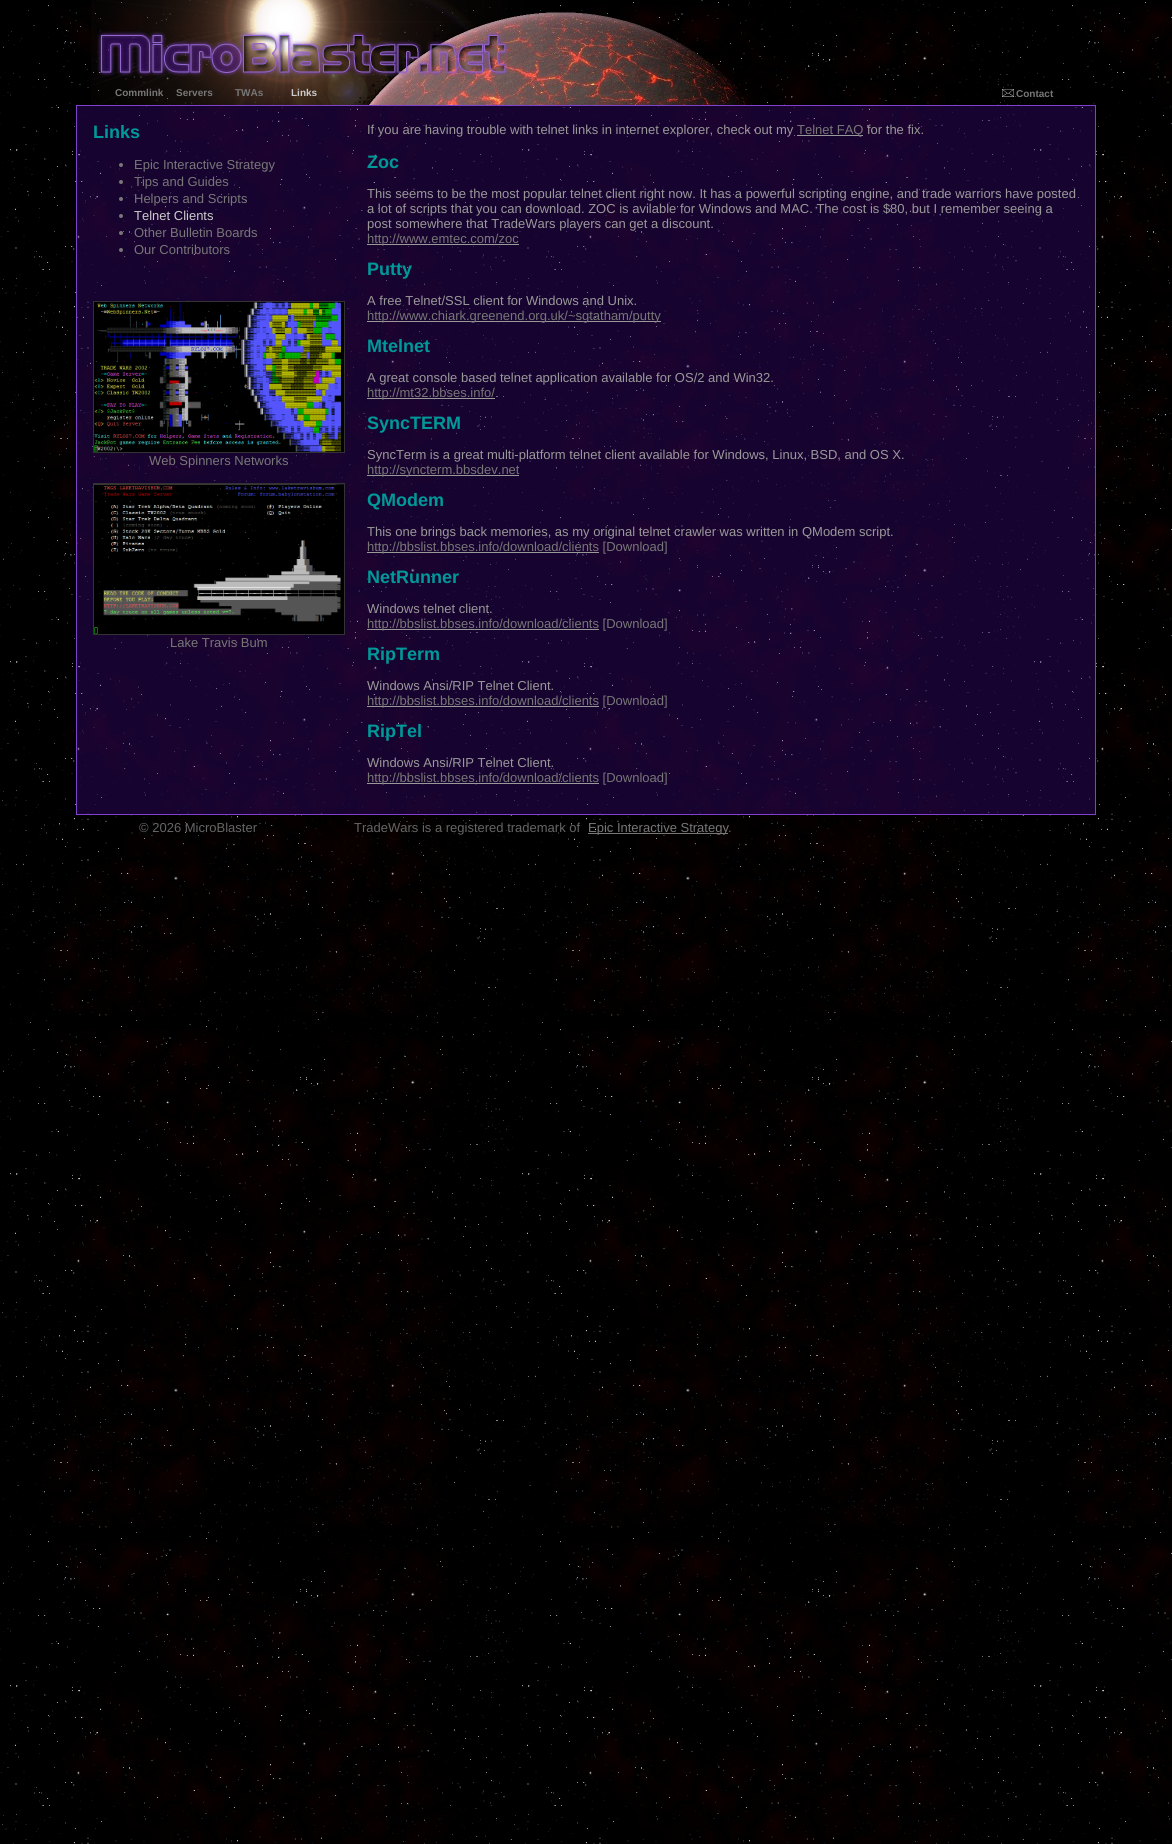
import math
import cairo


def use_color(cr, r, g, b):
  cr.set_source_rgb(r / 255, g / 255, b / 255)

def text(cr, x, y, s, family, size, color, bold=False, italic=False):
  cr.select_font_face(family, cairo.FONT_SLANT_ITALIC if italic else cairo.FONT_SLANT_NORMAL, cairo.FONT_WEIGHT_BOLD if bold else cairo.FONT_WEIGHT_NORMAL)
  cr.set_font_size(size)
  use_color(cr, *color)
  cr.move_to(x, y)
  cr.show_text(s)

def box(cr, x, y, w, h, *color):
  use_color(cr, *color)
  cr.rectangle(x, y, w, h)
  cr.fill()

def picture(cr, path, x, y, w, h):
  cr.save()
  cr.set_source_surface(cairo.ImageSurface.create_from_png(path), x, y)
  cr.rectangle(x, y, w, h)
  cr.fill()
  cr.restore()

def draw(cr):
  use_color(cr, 255, 255, 255)
  cr.paint()
  picture(cr, "img_01.png", 0, 0, 1172, 1844)
  picture(cr, "img_02.png", 8, 0, 1156, 1844)
  picture(cr, "img_03.png", 91, 0, 662, 105)
  picture(cr, "img_04.png", 97, 31, 412, 46)
  picture(cr, "img_05.png", 1002, 89, 12, 8)
  cr.set_source_rgba(0.298, 0.051, 0.624, 0.3)
  cr.rectangle(76.5, 105.5, 1019, 709)
  cr.fill_preserve()
  use_color(cr, 126, 66, 207)
  cr.set_line_width(1)
  cr.stroke()
  use_color(cr, 119, 119, 119)
  cr.arc(121, 165, 2, 0, 2 * math.pi)
  cr.fill()
  cr.arc(121, 182, 2, 0, 2 * math.pi)
  cr.fill()
  cr.arc(121, 199, 2, 0, 2 * math.pi)
  cr.fill()
  cr.arc(121, 216, 2, 0, 2 * math.pi)
  cr.fill()
  cr.arc(121, 233, 2, 0, 2 * math.pi)
  cr.fill()
  cr.arc(121, 250, 2, 0, 2 * math.pi)
  cr.fill()
  cr.rectangle(93.5, 301.5, 251, 151)
  use_color(cr, 51, 51, 51)
  cr.stroke()
  picture(cr, "img_06.png", 94, 302, 250, 150)
  cr.rectangle(93.5, 483.5, 251, 151)
  cr.stroke()
  picture(cr, "img_07.png", 94, 484, 250, 150)
  box(cr, 797, 135, 66, 1, 153, 153, 153)
  box(cr, 367, 244, 152, 1, 153, 153, 153)
  box(cr, 367, 321, 294, 1, 153, 153, 153)
  box(cr, 367, 398, 128, 1, 153, 153, 153)
  box(cr, 367, 475, 152, 1, 153, 153, 153)
  box(cr, 367, 552, 232, 1, 153, 153, 153)
  box(cr, 367, 629, 232, 1, 153, 153, 153)
  box(cr, 367, 706, 232, 1, 153, 153, 153)
  box(cr, 367, 783, 232, 1, 153, 153, 153)
  box(cr, 588, 833, 140, 1, 119, 119, 119)
  text(cr, 115, 96, "Commlink", "Liberation Sans", 10, (119, 119, 119), bold=True)
  text(cr, 176, 96, "Servers", "Liberation Sans", 10, (119, 119, 119), bold=True)
  text(cr, 235, 96, "TWAs", "Liberation Sans", 10, (119, 119, 119), bold=True)
  text(cr, 291, 96, "Links", "Liberation Sans", 10, (204, 204, 204), bold=True)
  text(cr, 1016, 97, "Contact", "Liberation Sans", 10, (119, 119, 119), bold=True)
  text(cr, 93, 138, "Links", "Liberation Sans", 18, (0, 153, 153), bold=True)
  text(cr, 134, 169, "Epic Interactive Strategy", "Liberation Sans", 13, (119, 119, 119))
  text(cr, 134, 186, "Tips and Guides", "Liberation Sans", 13, (119, 119, 119))
  text(cr, 134, 203, "Helpers and Scripts", "Liberation Sans", 13, (119, 119, 119))
  text(cr, 134, 220, "Telnet Clients", "Liberation Sans", 13, (204, 204, 204))
  text(cr, 134, 237, "Other Bulletin Boards", "Liberation Sans", 13, (119, 119, 119))
  text(cr, 134, 254, "Our Contributors", "Liberation Sans", 13, (119, 119, 119))
  text(cr, 149, 465, "Web Spinners Networks", "Liberation Sans", 13, (119, 119, 119))
  text(cr, 170, 647, "Lake Travis Bum", "Liberation Sans", 13, (119, 119, 119))
  text(cr, 367, 134, "If you are having trouble with telnet links in internet explorer, check out my", "Liberation Sans", 13, (153, 153, 153))
  text(cr, 797, 134, "Telnet FAQ", "Liberation Sans", 13, (119, 119, 119))
  text(cr, 867, 134, "for the fix.", "Liberation Sans", 13, (153, 153, 153))
  text(cr, 367, 168, "Zoc", "Liberation Sans", 18, (0, 153, 153), bold=True)
  text(cr, 367, 198, "This seems to be the most popular telnet client right now. It has a powerful scripting engine, and trade warriors have posted", "Liberation Sans", 13, (153, 153, 153))
  text(cr, 367, 213, "a lot of scripts that you can download. ZOC is avilable for Windows and MAC. The cost is $80, but I remember seeing a", "Liberation Sans", 13, (153, 153, 153))
  text(cr, 367, 228, "post somewhere that TradeWars players can get a discount.", "Liberation Sans", 13, (153, 153, 153))
  text(cr, 367, 243, "http://www.emtec.com/zoc", "Liberation Sans", 13, (119, 119, 119))
  text(cr, 367, 275, "Putty", "Liberation Sans", 18, (0, 153, 153), bold=True)
  text(cr, 367, 305, "A free Telnet/SSL client for Windows and Unix.", "Liberation Sans", 13, (153, 153, 153))
  text(cr, 367, 320, "http://www.chiark.greenend.org.uk/~sgtatham/putty", "Liberation Sans", 13, (119, 119, 119))
  text(cr, 367, 352, "Mtelnet", "Liberation Sans", 18, (0, 153, 153), bold=True)
  text(cr, 367, 382, "A great console based telnet application available for OS/2 and Win32.", "Liberation Sans", 13, (153, 153, 153))
  text(cr, 367, 397, "http://mt32.bbses.info/", "Liberation Sans", 13, (119, 119, 119))
  text(cr, 367, 429, "SyncTERM", "Liberation Sans", 18, (0, 153, 153), bold=True)
  text(cr, 367, 459, "SyncTerm is a great multi-platform telnet client available for Windows, Linux, BSD, and OS X.", "Liberation Sans", 13, (153, 153, 153))
  text(cr, 367, 474, "http://syncterm.bbsdev.net", "Liberation Sans", 13, (119, 119, 119))
  text(cr, 367, 506, "QModem", "Liberation Sans", 18, (0, 153, 153), bold=True)
  text(cr, 367, 536, "This one brings back memories, as my original telnet crawler was written in QModem script.", "Liberation Sans", 13, (153, 153, 153))
  text(cr, 367, 551, "http://bbslist.bbses.info/download/clients [Download]", "Liberation Sans", 13, (119, 119, 119))
  text(cr, 367, 583, "NetRunner", "Liberation Sans", 18, (0, 153, 153), bold=True)
  text(cr, 367, 613, "Windows telnet client.", "Liberation Sans", 13, (153, 153, 153))
  text(cr, 367, 628, "http://bbslist.bbses.info/download/clients [Download]", "Liberation Sans", 13, (119, 119, 119))
  text(cr, 367, 660, "RipTerm", "Liberation Sans", 18, (0, 153, 153), bold=True)
  text(cr, 367, 690, "Windows Ansi/RIP Telnet Client.", "Liberation Sans", 13, (153, 153, 153))
  text(cr, 367, 705, "http://bbslist.bbses.info/download/clients [Download]", "Liberation Sans", 13, (119, 119, 119))
  text(cr, 367, 737, "RipTel", "Liberation Sans", 18, (0, 153, 153), bold=True)
  text(cr, 367, 767, "Windows Ansi/RIP Telnet Client.", "Liberation Sans", 13, (153, 153, 153))
  text(cr, 367, 782, "http://bbslist.bbses.info/download/clients [Download]", "Liberation Sans", 13, (119, 119, 119))
  text(cr, 139, 832, "© 2026 MicroBlaster", "Liberation Sans", 13, (102, 102, 102))
  text(cr, 354, 832, "TradeWars is a registered trademark of", "Liberation Sans", 13, (102, 102, 102))
  text(cr, 588, 832, "Epic Interactive Strategy", "Liberation Sans", 13, (119, 119, 119))
  text(cr, 728, 832, ".", "Liberation Sans", 13, (102, 102, 102))


surface = cairo.ImageSurface(cairo.FORMAT_RGB24, 1172, 1844)
cr = cairo.Context(surface)
options = cairo.FontOptions()
options.set_hint_metrics(cairo.HINT_METRICS_OFF)
options.set_hint_style(cairo.HINT_STYLE_NONE)
cr.set_font_options(options)
cr.set_miter_limit(4)
draw(cr)
surface.write_to_png("out.png")
